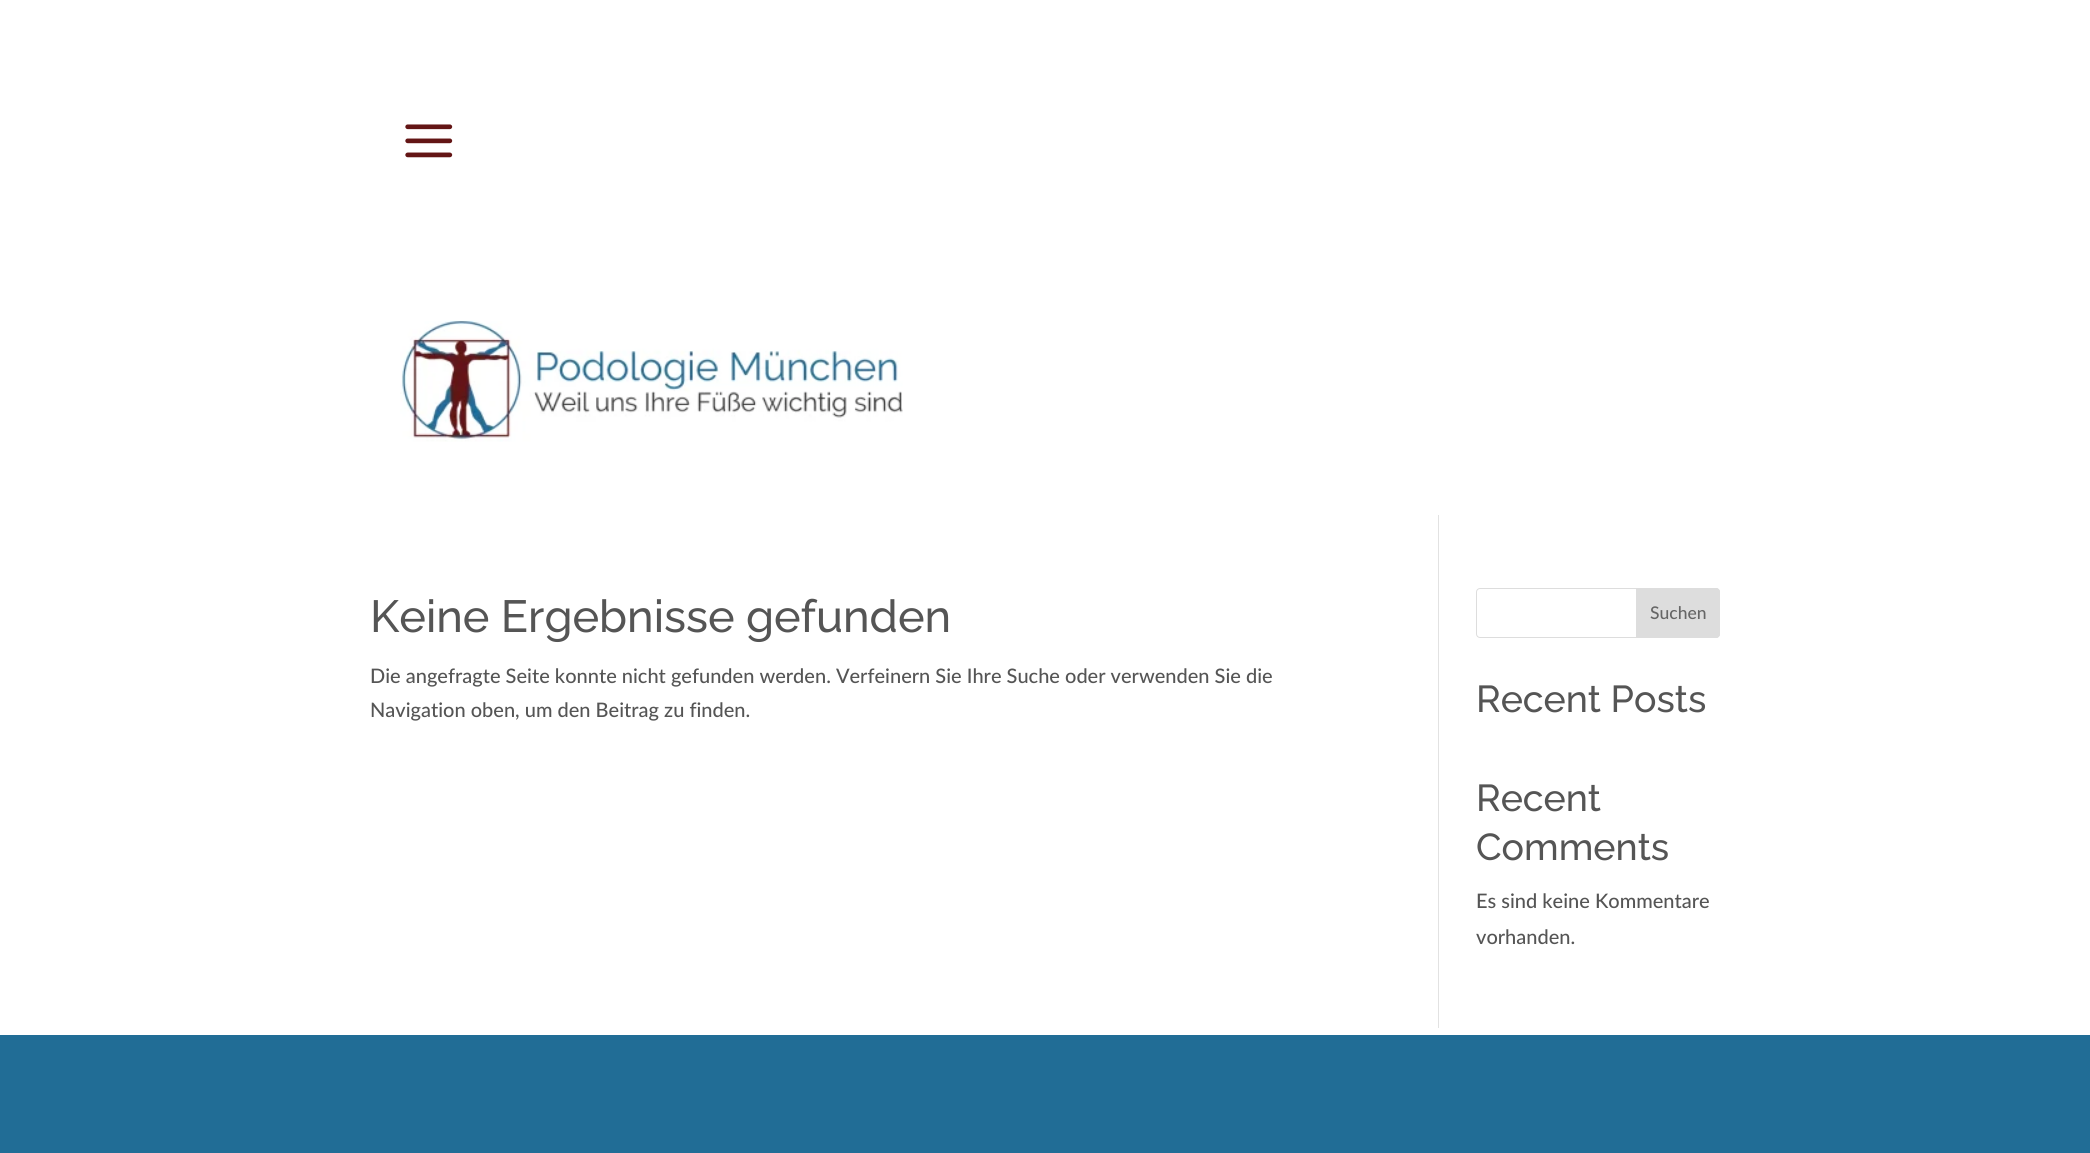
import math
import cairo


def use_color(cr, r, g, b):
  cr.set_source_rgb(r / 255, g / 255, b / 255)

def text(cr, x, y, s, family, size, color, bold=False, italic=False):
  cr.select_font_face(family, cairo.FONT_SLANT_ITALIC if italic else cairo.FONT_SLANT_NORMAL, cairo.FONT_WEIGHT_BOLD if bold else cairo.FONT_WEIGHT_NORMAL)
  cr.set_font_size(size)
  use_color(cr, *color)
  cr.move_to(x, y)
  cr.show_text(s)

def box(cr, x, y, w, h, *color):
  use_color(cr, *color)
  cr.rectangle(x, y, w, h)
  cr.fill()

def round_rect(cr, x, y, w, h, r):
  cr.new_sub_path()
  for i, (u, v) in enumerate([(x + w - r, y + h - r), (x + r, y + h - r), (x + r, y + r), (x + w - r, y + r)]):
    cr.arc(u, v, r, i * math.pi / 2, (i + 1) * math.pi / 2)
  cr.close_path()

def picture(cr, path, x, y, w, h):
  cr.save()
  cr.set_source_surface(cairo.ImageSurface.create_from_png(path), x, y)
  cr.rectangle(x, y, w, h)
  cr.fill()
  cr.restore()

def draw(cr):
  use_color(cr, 255, 255, 255)
  cr.paint()
  picture(cr, "img_01.png", 405, 124, 48, 34)
  picture(cr, "img_02.png", 400, 320, 503, 122)
  box(cr, 1438, 515, 1, 513, 226, 226, 226)
  round_rect(cr, 1476.5, 588.5, 243, 49, 3.5)
  use_color(cr, 221, 221, 221)
  cr.set_line_width(1)
  cr.stroke()
  cr.new_path()
  cr.move_to(1636.5, 588.5)
  cr.line_to(1716, 588.5)
  cr.curve_to(1718, 588.5, 1719.5, 590, 1719.5, 592)
  cr.line_to(1719.5, 634)
  cr.curve_to(1719.5, 636, 1718, 637.5, 1716, 637.5)
  cr.line_to(1636.5, 637.5)
  cr.close_path()
  cr.fill_preserve()
  cr.stroke()
  box(cr, 0, 1035, 2090, 118, 33, 109, 150)
  text(cr, 370, 632, "Keine Ergebnisse gefunden", "Raleway Medium", 45, (85, 85, 85))
  text(cr, 370, 683, "Die angefragte Seite konnte nicht gefunden werden. Verfeinern Sie Ihre Suche oder verwenden Sie die", "Lato Medium", 20, (85, 85, 85))
  text(cr, 370, 717, "Navigation oben, um den Beitrag zu finden.", "Lato Medium", 20, (85, 85, 85))
  text(cr, 1650, 619, "Suchen", "Lato Medium", 17.5, (102, 102, 102))
  text(cr, 1476, 712, "Recent Posts", "Raleway Medium", 37.5, (85, 85, 85))
  text(cr, 1476, 811, "Recent", "Raleway Medium", 37.5, (85, 85, 85))
  text(cr, 1476, 860, "Comments", "Raleway Medium", 37.5, (85, 85, 85))
  text(cr, 1476, 908, "Es sind keine Kommentare", "Lato Medium", 20, (85, 85, 85))
  text(cr, 1476, 944, "vorhanden.", "Lato Medium", 20, (85, 85, 85))


surface = cairo.ImageSurface(cairo.FORMAT_RGB24, 2090, 1153)
cr = cairo.Context(surface)
options = cairo.FontOptions()
options.set_hint_metrics(cairo.HINT_METRICS_OFF)
options.set_hint_style(cairo.HINT_STYLE_NONE)
cr.set_font_options(options)
cr.set_miter_limit(4)
draw(cr)
surface.write_to_png("out.png")
